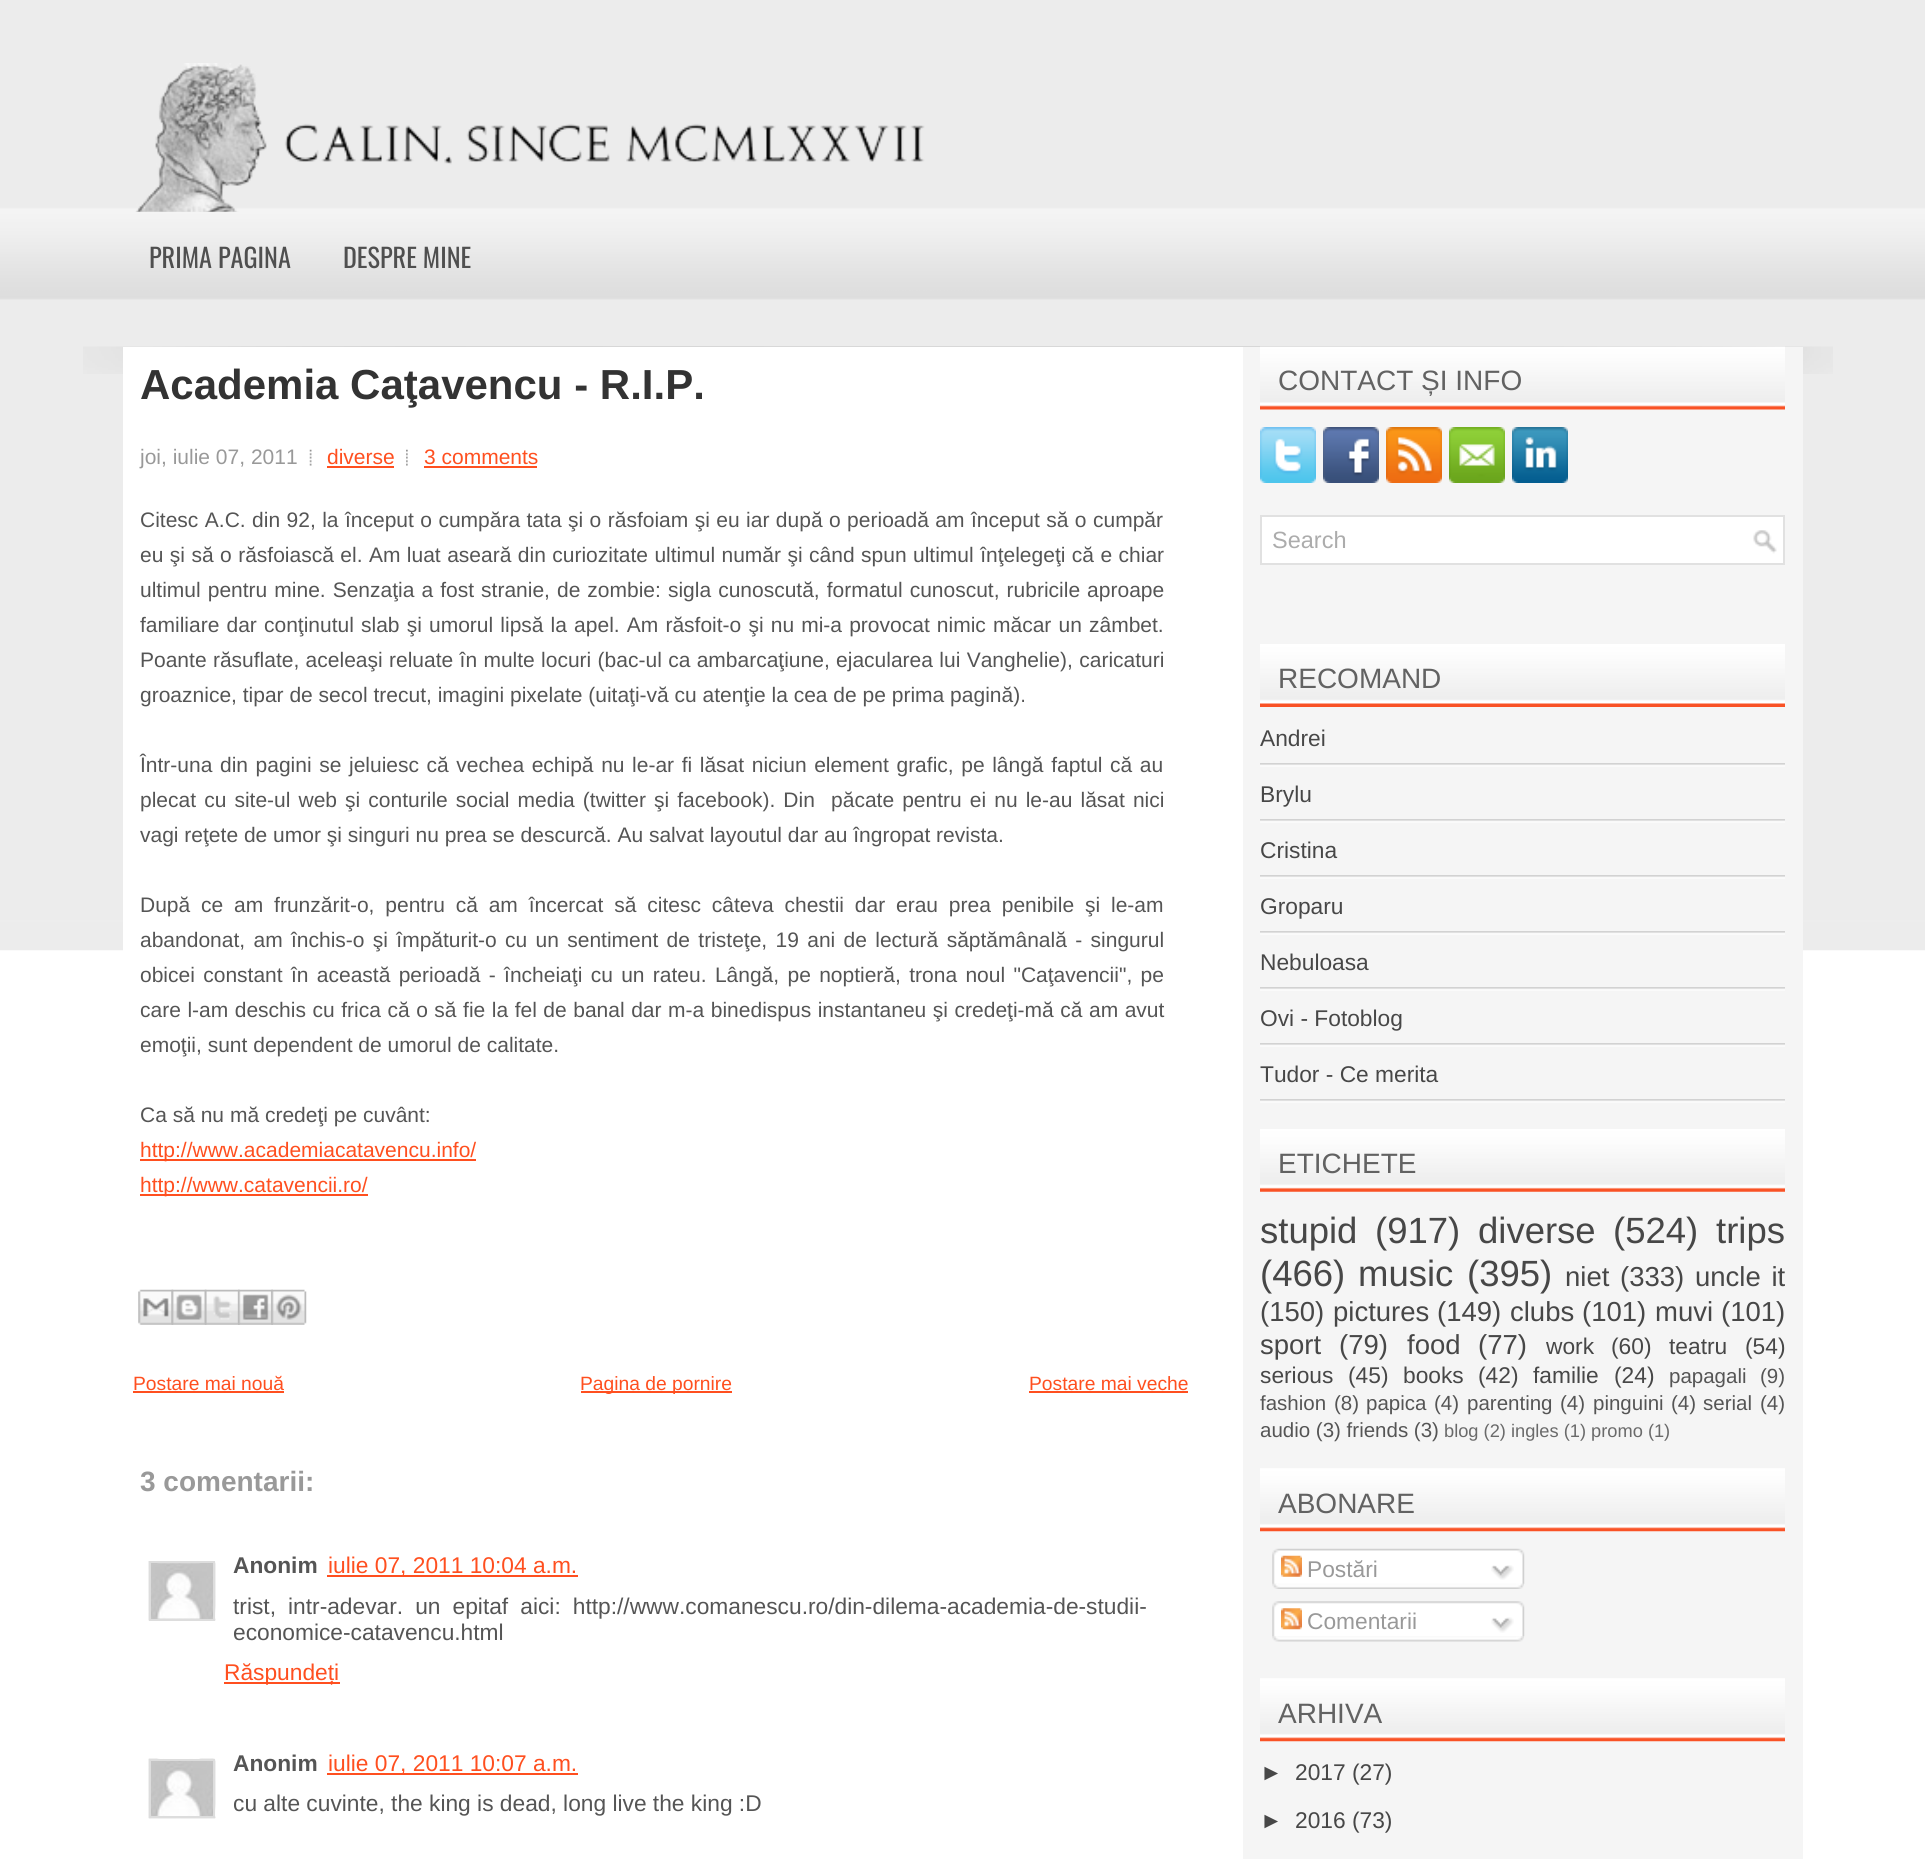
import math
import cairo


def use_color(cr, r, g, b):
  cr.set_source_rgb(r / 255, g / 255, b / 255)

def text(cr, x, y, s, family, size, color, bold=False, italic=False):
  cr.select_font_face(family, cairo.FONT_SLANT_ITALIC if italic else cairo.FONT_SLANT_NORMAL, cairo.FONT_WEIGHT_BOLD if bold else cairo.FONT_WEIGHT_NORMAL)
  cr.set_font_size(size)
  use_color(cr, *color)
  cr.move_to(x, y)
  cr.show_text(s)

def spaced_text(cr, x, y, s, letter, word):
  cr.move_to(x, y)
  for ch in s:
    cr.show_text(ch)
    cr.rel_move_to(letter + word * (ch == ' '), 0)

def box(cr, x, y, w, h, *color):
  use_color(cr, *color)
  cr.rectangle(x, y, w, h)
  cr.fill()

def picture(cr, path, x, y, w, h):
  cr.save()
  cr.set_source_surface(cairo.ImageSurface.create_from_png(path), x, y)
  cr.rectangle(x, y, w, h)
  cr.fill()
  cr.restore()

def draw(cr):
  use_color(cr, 255, 255, 255)
  cr.paint()
  picture(cr, "img_01.png", 0, 0, 1925, 951)
  picture(cr, "img_02.png", 83, 346, 1750, 28)
  picture(cr, "img_03.png", 135, 63, 790, 149)
  box(cr, 123, 347, 1120, 604, 255, 255, 255)
  picture(cr, "img_04.png", 309, 449, 3, 17)
  box(cr, 327, 466, 67, 2, 255, 79, 31)
  picture(cr, "img_05.png", 406, 449, 2, 17)
  box(cr, 424, 466, 113, 2, 255, 79, 31)
  box(cr, 140, 1159, 336, 2, 255, 79, 31)
  box(cr, 140, 1194, 228, 2, 255, 79, 31)
  picture(cr, "img_06.png", 138, 1289, 36, 36)
  picture(cr, "img_07.png", 171, 1289, 36, 36)
  picture(cr, "img_08.png", 204, 1289, 36, 36)
  picture(cr, "img_09.png", 238, 1289, 35, 36)
  picture(cr, "img_10.png", 271, 1289, 36, 36)
  box(cr, 133, 1391, 151, 2, 255, 79, 31)
  box(cr, 581, 1391, 151, 2, 255, 79, 31)
  box(cr, 1029, 1391, 159, 2, 255, 79, 31)
  picture(cr, "img_11.png", 148, 1561, 68, 60)
  cr.rectangle(150, 1562, 64, 58)
  use_color(cr, 221, 221, 221)
  cr.stroke()
  box(cr, 327, 1575, 251, 2, 255, 79, 31)
  box(cr, 224, 1682, 116, 2, 255, 79, 31)
  picture(cr, "img_12.png", 148, 1758, 68, 61)
  cr.rectangle(150, 1760, 64, 57)
  use_color(cr, 221, 221, 221)
  cr.stroke()
  box(cr, 327, 1773, 251, 2, 255, 79, 31)
  box(cr, 1243, 347, 560, 1512, 245, 245, 245)
  picture(cr, "img_13.png", 1260, 346, 525, 64)
  picture(cr, "img_14.png", 1260, 427, 56, 56)
  picture(cr, "img_15.png", 1323, 427, 56, 56)
  picture(cr, "img_16.png", 1386, 427, 56, 56)
  picture(cr, "img_17.png", 1449, 427, 56, 56)
  picture(cr, "img_18.png", 1512, 427, 56, 56)
  box(cr, 1262, 517, 521, 46, 255, 255, 255)
  picture(cr, "img_19.png", 1753, 530, 24, 24)
  cr.rectangle(1261, 516, 523, 48)
  use_color(cr, 225, 225, 225)
  cr.stroke()
  picture(cr, "img_20.png", 1260, 644, 525, 63)
  picture(cr, "img_21.png", 1260, 763, 525, 4)
  picture(cr, "img_21.png", 1260, 819, 525, 4)
  picture(cr, "img_21.png", 1260, 875, 525, 4)
  picture(cr, "img_21.png", 1260, 931, 525, 4)
  picture(cr, "img_21.png", 1260, 987, 525, 4)
  picture(cr, "img_21.png", 1260, 1043, 525, 4)
  picture(cr, "img_21.png", 1260, 1099, 525, 4)
  picture(cr, "img_22.png", 1260, 1129, 525, 63)
  picture(cr, "img_23.png", 1260, 1468, 525, 64)
  picture(cr, "img_24.png", 1272, 1548, 253, 36)
  picture(cr, "img_25.png", 1281, 1555, 21, 22)
  picture(cr, "img_26.png", 1491, 1565, 23, 15)
  picture(cr, "img_27.png", 1272, 1583, 252, 6)
  picture(cr, "img_28.png", 1272, 1601, 253, 36)
  picture(cr, "img_29.png", 1281, 1608, 21, 22)
  picture(cr, "img_30.png", 1491, 1617, 23, 16)
  picture(cr, "img_31.png", 1272, 1636, 252, 6)
  picture(cr, "img_23.png", 1260, 1678, 525, 64)
  text(cr, 149, 268, "PRIMA PAGINA", "Oswald", 26.25, (79, 79, 79))
  text(cr, 343, 268, "DESPRE MINE", "Oswald", 26.25, (79, 79, 79))
  text(cr, 140, 399, "Academia Caţavencu - R.I.P.", "Liberation Sans", 42, (51, 51, 51), bold=True)
  text(cr, 140, 464, "joi, iulie 07, 2011", "Liberation Sans", 21, (153, 153, 153))
  text(cr, 327, 464, "diverse", "Liberation Sans", 21, (255, 79, 31))
  text(cr, 424, 464, "3 comments", "Liberation Sans", 21, (255, 79, 31))
  use_color(cr, 85, 85, 85)
  spaced_text(cr, 140, 527, "Citesc A.C. din 92, la început o cumpăra tata şi o răsfoiam şi eu iar după o perioadă am început să o cumpăr", 0, 0.6)
  spaced_text(cr, 140, 562, "eu şi să o răsfoiască el. Am luat aseară din curiozitate ultimul număr şi când spun ultimul înţelegeţi că e chiar", 0, 0.6)
  spaced_text(cr, 140, 597, "ultimul pentru mine. Senzaţia a fost stranie, de zombie: sigla cunoscută, formatul cunoscut, rubricile aproape", 0, 1.2)
  spaced_text(cr, 140, 632, "familiare dar conţinutul slab şi umorul lipsă la apel. Am răsfoit-o şi nu mi-a provocat nimic măcar un zâmbet.", 0, 1.3)
  spaced_text(cr, 140, 667, "Poante răsuflate, aceleaşi reluate în multe locuri (bac-ul ca ambarcaţiune, ejacularea lui Vanghelie), caricaturi", 0, 0.5)
  text(cr, 140, 702, "groaznice, tipar de secol trecut, imagini pixelate (uitaţi-vă cu atenţie la cea de pe prima pagină).", "Liberation Sans", 21, (85, 85, 85))
  spaced_text(cr, 140, 772, "Într-una din pagini se jeluiesc că vechea echipă nu le-ar fi lăsat niciun element grafic, pe lângă faptul că au", 0, 1.75)
  spaced_text(cr, 140, 807, "plecat cu site-ul web şi conturile social media (twitter şi facebook). Din  păcate pentru ei nu le-au lăsat nici", 0, 2.25)
  text(cr, 140, 842, "vagi reţete de umor şi singuri nu prea se descurcă. Au salvat layoutul dar au îngropat revista.", "Liberation Sans", 21, (85, 85, 85))
  spaced_text(cr, 140, 912, "După ce am frunzărit-o, pentru că am încercat să citesc câteva chestii dar erau prea penibile şi le-am", 0, 5)
  spaced_text(cr, 140, 947, "abandonat, am închis-o şi împăturit-o cu un sentiment de tristeţe, 19 ani de lectură săptămânală - singurul", 0, 2.5)
  spaced_text(cr, 140, 982, "obicei constant în această perioadă - încheiaţi cu un rateu. Lângă, pe noptieră, trona noul \"Caţavencii\", pe", 0, 2.5)
  spaced_text(cr, 140, 1017, "care l-am deschis cu frica că o să fie la fel de banal dar m-a binedispus instantaneu şi credeţi-mă că am avut", 0, 0.7)
  text(cr, 140, 1052, "emoţii, sunt dependent de umorul de calitate.", "Liberation Sans", 21, (85, 85, 85))
  text(cr, 140, 1122, "Ca să nu mă credeţi pe cuvânt:", "Liberation Sans", 21, (85, 85, 85))
  text(cr, 140, 1157, "http://www.academiacatavencu.info/", "Liberation Sans", 21, (255, 79, 31))
  text(cr, 140, 1192, "http://www.catavencii.ro/", "Liberation Sans", 21, (255, 79, 31))
  text(cr, 133, 1390, "Postare mai nouă", "Liberation Sans", 19.25, (255, 79, 31))
  text(cr, 580, 1390, "Pagina de pornire", "Liberation Sans", 19.25, (255, 79, 31))
  text(cr, 1029, 1390, "Postare mai veche", "Liberation Sans", 19.25, (255, 79, 31))
  text(cr, 140, 1491, "3 comentarii:", "Liberation Sans", 28, (153, 153, 153), bold=True)
  text(cr, 233, 1573, "Anonim", "Liberation Sans", 22.75, (85, 85, 85), bold=True)
  text(cr, 328, 1573, "iulie 07, 2011 10:04 a.m.", "Liberation Sans", 22.75, (255, 79, 31))
  use_color(cr, 85, 85, 85)
  spaced_text(cr, 233, 1614, "trist, intr-adevar. un epitaf aici: http://www.comanescu.ro/din-dilema-academia-de-studii-", 0, 5.75)
  text(cr, 233, 1640, "economice-catavencu.html", "Liberation Sans", 22.75, (85, 85, 85))
  text(cr, 224, 1680, "Răspundeți", "Liberation Sans", 22.75, (255, 79, 31))
  text(cr, 233, 1771, "Anonim", "Liberation Sans", 22.75, (85, 85, 85), bold=True)
  text(cr, 328, 1771, "iulie 07, 2011 10:07 a.m.", "Liberation Sans", 22.75, (255, 79, 31))
  text(cr, 233, 1811, "cu alte cuvinte, the king is dead, long live the king :D", "Liberation Sans", 22.75, (85, 85, 85))
  text(cr, 1278, 390, "CONTACT ȘI INFO", "Liberation Sans", 28, (98, 98, 98))
  text(cr, 1272, 548, "Search", "Liberation Sans", 23.5, (172, 172, 172))
  text(cr, 1278, 688, "RECOMAND", "Liberation Sans", 28, (98, 98, 98))
  text(cr, 1260, 746, "Andrei", "Liberation Sans", 22.75, (71, 71, 71))
  text(cr, 1260, 802, "Brylu", "Liberation Sans", 22.75, (71, 71, 71))
  text(cr, 1260, 858, "Cristina", "Liberation Sans", 22.75, (71, 71, 71))
  text(cr, 1260, 914, "Groparu", "Liberation Sans", 22.75, (71, 71, 71))
  text(cr, 1260, 970, "Nebuloasa", "Liberation Sans", 22.75, (71, 71, 71))
  text(cr, 1260, 1026, "Ovi - Fotoblog", "Liberation Sans", 22.75, (71, 71, 71))
  text(cr, 1260, 1082, "Tudor - Ce merita", "Liberation Sans", 22.75, (71, 71, 71))
  text(cr, 1278, 1173, "ETICHETE", "Liberation Sans", 28, (98, 98, 98))
  text(cr, 1260, 1243, "stupid", "Liberation Sans", 36.5, (71, 71, 71))
  text(cr, 1375, 1243, "(917)", "Liberation Sans", 36.5, (71, 71, 71))
  text(cr, 1478, 1243, "diverse", "Liberation Sans", 36.5, (71, 71, 71))
  text(cr, 1613, 1243, "(524)", "Liberation Sans", 36.5, (71, 71, 71))
  text(cr, 1716, 1243, "trips", "Liberation Sans", 36.5, (71, 71, 71))
  text(cr, 1260, 1286, "(466)", "Liberation Sans", 36.5, (71, 71, 71))
  text(cr, 1358, 1286, "music", "Liberation Sans", 36.5, (71, 71, 71))
  text(cr, 1467, 1286, "(395)", "Liberation Sans", 36.5, (71, 71, 71))
  text(cr, 1565, 1286, "niet", "Liberation Sans", 27.5, (71, 71, 71))
  text(cr, 1620, 1286, "(333)", "Liberation Sans", 27.5, (71, 71, 71))
  spaced_text(cr, 1695, 1286, "uncle it", 0, 3)
  text(cr, 1260, 1321, "(150)", "Liberation Sans", 27.5, (71, 71, 71))
  text(cr, 1333, 1321, "pictures", "Liberation Sans", 27.5, (71, 71, 71))
  text(cr, 1437, 1321, "(149)", "Liberation Sans", 27.5, (71, 71, 71))
  text(cr, 1510, 1321, "clubs", "Liberation Sans", 27.5, (71, 71, 71))
  text(cr, 1582, 1321, "(101)", "Liberation Sans", 27.5, (71, 71, 71))
  text(cr, 1655, 1321, "muvi", "Liberation Sans", 27.5, (71, 71, 71))
  text(cr, 1721, 1321, "(101)", "Liberation Sans", 27.5, (71, 71, 71))
  text(cr, 1260, 1354, "sport", "Liberation Sans", 27.5, (71, 71, 71))
  text(cr, 1339, 1354, "(79)", "Liberation Sans", 27.5, (71, 71, 71))
  text(cr, 1407, 1354, "food", "Liberation Sans", 27.5, (71, 71, 71))
  text(cr, 1478, 1354, "(77)", "Liberation Sans", 27.5, (71, 71, 71))
  text(cr, 1546, 1354, "work", "Liberation Sans", 22.75, (71, 71, 71))
  text(cr, 1611, 1354, "(60)", "Liberation Sans", 22.75, (71, 71, 71))
  text(cr, 1669, 1354, "teatru", "Liberation Sans", 22.75, (71, 71, 71))
  text(cr, 1745, 1354, "(54)", "Liberation Sans", 22.75, (71, 71, 71))
  text(cr, 1260, 1383, "serious", "Liberation Sans", 22.75, (71, 71, 71))
  text(cr, 1348, 1383, "(45)", "Liberation Sans", 22.75, (71, 71, 71))
  text(cr, 1403, 1383, "books", "Liberation Sans", 22.75, (71, 71, 71))
  text(cr, 1478, 1383, "(42)", "Liberation Sans", 22.75, (71, 71, 71))
  text(cr, 1533, 1383, "familie", "Liberation Sans", 22.75, (71, 71, 71))
  text(cr, 1614, 1383, "(24)", "Liberation Sans", 22.75, (71, 71, 71))
  text(cr, 1669, 1383, "papagali", "Liberation Sans", 20.5, (85, 85, 85))
  text(cr, 1760, 1383, "(9)", "Liberation Sans", 20.5, (85, 85, 85))
  text(cr, 1260, 1410, "fashion", "Liberation Sans", 20.5, (85, 85, 85))
  text(cr, 1334, 1410, "(8)", "Liberation Sans", 20.5, (85, 85, 85))
  text(cr, 1366, 1410, "papica", "Liberation Sans", 20.5, (85, 85, 85))
  text(cr, 1434, 1410, "(4)", "Liberation Sans", 20.5, (85, 85, 85))
  text(cr, 1467, 1410, "parenting", "Liberation Sans", 20.5, (85, 85, 85))
  text(cr, 1560, 1410, "(4)", "Liberation Sans", 20.5, (85, 85, 85))
  text(cr, 1593, 1410, "pinguini", "Liberation Sans", 20.5, (85, 85, 85))
  text(cr, 1671, 1410, "(4)", "Liberation Sans", 20.5, (85, 85, 85))
  text(cr, 1703, 1410, "serial", "Liberation Sans", 20.5, (85, 85, 85))
  text(cr, 1760, 1410, "(4)", "Liberation Sans", 20.5, (85, 85, 85))
  text(cr, 1260, 1437, "audio (3) friends (3)", "Liberation Sans", 20.5, (85, 85, 85))
  text(cr, 1444, 1437, "blog (2) ingles (1) promo (1)", "Liberation Sans", 18.25, (106, 106, 106))
  text(cr, 1278, 1513, "ABONARE", "Liberation Sans", 28, (98, 98, 98))
  text(cr, 1307, 1577, "Postări", "Liberation Sans", 22.75, (153, 153, 153))
  text(cr, 1307, 1629, "Comentarii", "Liberation Sans", 22.75, (153, 153, 153))
  text(cr, 1278, 1723, "ARHIVA", "Liberation Sans", 28, (98, 98, 98))
  text(cr, 1260, 1780, "►", "Liberation Sans", 22.75, (71, 71, 71))
  text(cr, 1295, 1780, "2017 (27)", "Liberation Sans", 22.75, (71, 71, 71))
  text(cr, 1260, 1828, "►", "Liberation Sans", 22.75, (71, 71, 71))
  text(cr, 1295, 1828, "2016 (73)", "Liberation Sans", 22.75, (71, 71, 71))


surface = cairo.ImageSurface(cairo.FORMAT_RGB24, 1925, 1859)
cr = cairo.Context(surface)
options = cairo.FontOptions()
options.set_hint_metrics(cairo.HINT_METRICS_OFF)
options.set_hint_style(cairo.HINT_STYLE_NONE)
cr.set_font_options(options)
cr.set_miter_limit(4)
draw(cr)
surface.write_to_png("out.png")
